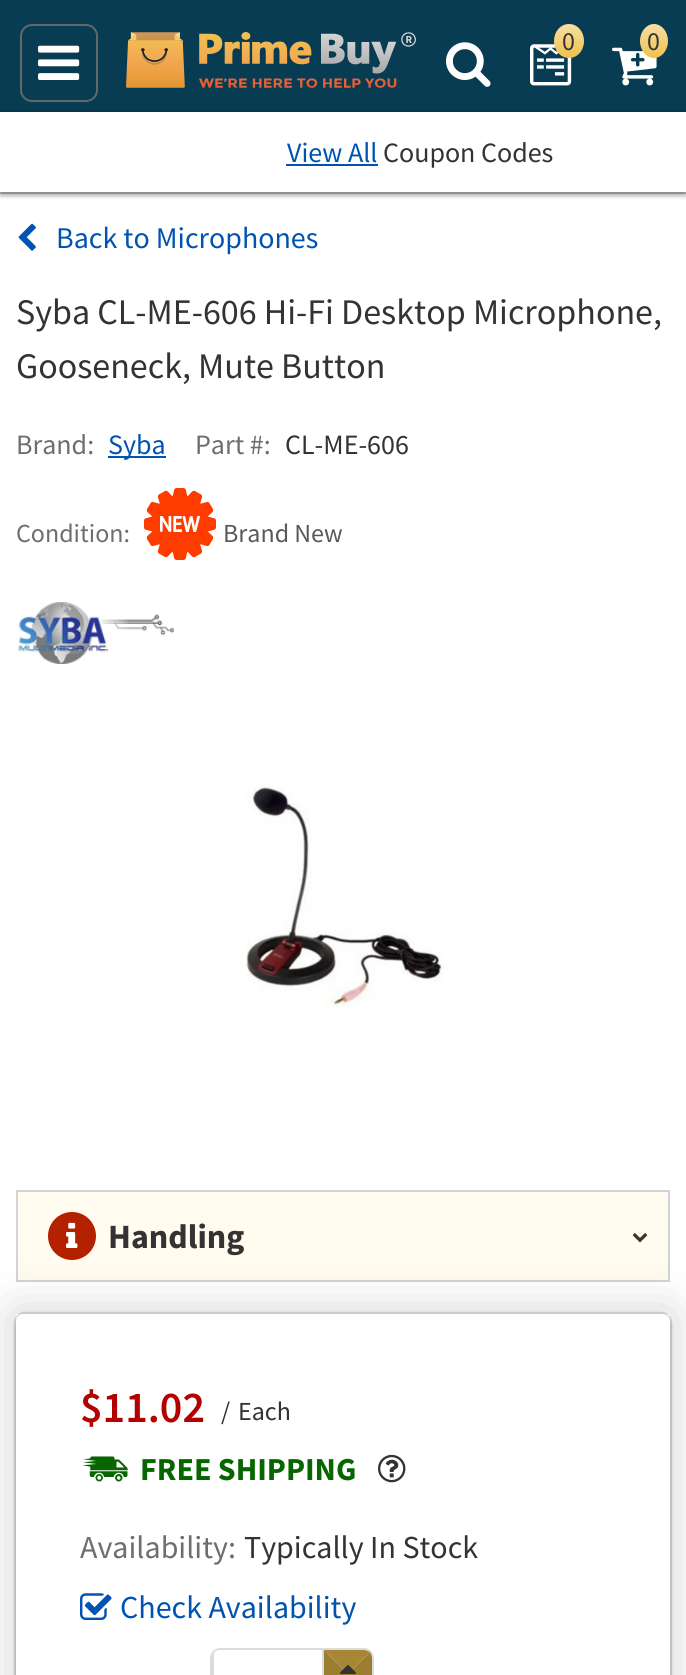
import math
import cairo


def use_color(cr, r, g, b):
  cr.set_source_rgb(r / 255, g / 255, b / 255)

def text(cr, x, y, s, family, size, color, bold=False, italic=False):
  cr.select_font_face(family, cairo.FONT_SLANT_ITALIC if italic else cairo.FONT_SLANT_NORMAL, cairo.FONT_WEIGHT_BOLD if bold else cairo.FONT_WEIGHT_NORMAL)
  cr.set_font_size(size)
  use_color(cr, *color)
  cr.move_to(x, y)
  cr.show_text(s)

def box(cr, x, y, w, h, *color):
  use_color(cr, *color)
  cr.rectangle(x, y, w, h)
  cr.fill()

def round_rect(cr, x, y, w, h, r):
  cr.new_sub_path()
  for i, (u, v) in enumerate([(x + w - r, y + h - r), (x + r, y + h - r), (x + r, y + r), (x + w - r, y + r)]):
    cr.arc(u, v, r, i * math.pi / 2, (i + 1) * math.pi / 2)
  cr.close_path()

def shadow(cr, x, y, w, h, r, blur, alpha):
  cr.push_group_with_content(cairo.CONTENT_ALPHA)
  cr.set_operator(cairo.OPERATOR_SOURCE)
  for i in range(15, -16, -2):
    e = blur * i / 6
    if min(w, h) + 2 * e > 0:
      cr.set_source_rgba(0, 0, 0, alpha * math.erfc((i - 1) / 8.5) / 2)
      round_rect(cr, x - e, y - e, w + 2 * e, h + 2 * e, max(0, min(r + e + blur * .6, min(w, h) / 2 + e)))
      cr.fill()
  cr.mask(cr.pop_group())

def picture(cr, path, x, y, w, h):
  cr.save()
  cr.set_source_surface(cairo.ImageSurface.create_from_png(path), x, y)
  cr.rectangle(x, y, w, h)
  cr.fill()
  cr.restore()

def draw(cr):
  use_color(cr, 255, 255, 255)
  cr.paint()
  cr.rectangle(-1, -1, 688, 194)
  use_color(cr, 224, 224, 224)
  cr.stroke()
  use_color(cr, 0, 0, 0)
  shadow(cr, 0, 4, 686, 192, 0, 2, 0.16)
  box(cr, 0, 0, 686, 112, 8, 60, 83)
  round_rect(cr, 21, 25, 76, 76, 11)
  use_color(cr, 96, 104, 107)
  cr.stroke()
  picture(cr, "img_01.png", 38, 45, 42, 35)
  picture(cr, "img_02.png", 126, 32, 290, 56)
  picture(cr, "img_03.png", 446, 42, 45, 45)
  picture(cr, "img_04.png", 530, 44, 42, 42)
  gradient = cairo.LinearGradient(569, 24, 569, 58)
  gradient.add_color_stop_rgba(0, 0.969, 0.875, 0.647, 1)
  gradient.add_color_stop_rgba(1, 0.941, 0.757, 0.294, 1)
  cr.set_source(gradient)
  cr.new_path()
  cr.move_to(569, 24)
  cr.curve_to(577.5, 24, 584, 31.5, 584, 41)
  cr.curve_to(584, 50.5, 577.5, 58, 569, 58)
  cr.curve_to(560.5, 58, 554, 50.5, 554, 41)
  cr.curve_to(554, 31.5, 560.5, 24, 569, 24)
  cr.close_path()
  cr.fill()
  picture(cr, "img_05.png", 612, 47, 45, 39)
  gradient = cairo.LinearGradient(654, 24, 654, 58)
  gradient.add_color_stop_rgba(0, 0.969, 0.875, 0.647, 1)
  gradient.add_color_stop_rgba(1, 0.941, 0.757, 0.294, 1)
  cr.set_source(gradient)
  cr.new_path()
  cr.move_to(654, 24)
  cr.curve_to(661.5, 24, 668, 31.5, 668, 41)
  cr.curve_to(668, 50.5, 661.5, 58, 654, 58)
  cr.curve_to(646.5, 58, 640, 50.5, 640, 41)
  cr.curve_to(640, 31.5, 646.5, 24, 654, 24)
  cr.close_path()
  cr.fill()
  cr.rectangle(-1, 111, 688, 82)
  cr.set_source_rgba(0, 0, 0, 0.12)
  cr.stroke()
  use_color(cr, 0, 0, 0)
  shadow(cr, 0, 116, 686, 80, 0, 2, 0.16)
  box(cr, 0, 112, 686, 80, 255, 255, 255)
  box(cr, 286, 164, 92, 2, 0, 83, 179)
  picture(cr, "img_06.png", 18, 223, 18, 28)
  box(cr, 108, 456, 58, 2, 0, 83, 179)
  picture(cr, "img_07.png", 144, 488, 72, 72)
  picture(cr, "img_08.png", 18, 602, 156, 62)
  picture(cr, "img_09.png", 246, 786, 198, 222)
  cr.rectangle(17, 1191, 652, 90)
  use_color(cr, 209, 211, 212)
  cr.stroke()
  box(cr, 18, 1192, 650, 88, 255, 251, 239)
  use_color(cr, 180, 33, 0)
  cr.arc(72, 1236, 24, 0, 2 * math.pi)
  cr.fill()
  picture(cr, "img_10.png", 66, 1222, 12, 26)
  picture(cr, "img_11.png", 632, 1233, 16, 10)
  cr.save()
  cr.set_fill_rule(cairo.FILL_RULE_EVEN_ODD)
  cr.new_path()
  cr.move_to(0, 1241)
  cr.line_to(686, 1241)
  cr.line_to(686, 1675)
  cr.line_to(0, 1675)
  cr.close_path()
  cr.move_to(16, 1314)
  cr.line_to(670, 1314)
  cr.line_to(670, 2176)
  cr.line_to(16, 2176)
  cr.close_path()
  cr.clip()
  use_color(cr, 0, 0, 0)
  shadow(cr, 16, 1314, 654, 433, 0, 24, 0.2)
  cr.restore()
  round_rect(cr, 15, 1313, 656, 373, 9)
  cr.set_source_rgba(0, 0, 0, 0.12)
  cr.stroke()
  cr.save()
  cr.set_fill_rule(cairo.FILL_RULE_EVEN_ODD)
  cr.new_path()
  cr.move_to(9, 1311)
  cr.line_to(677, 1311)
  cr.line_to(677, 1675)
  cr.line_to(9, 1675)
  cr.close_path()
  cr.move_to(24, 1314)
  cr.line_to(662, 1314)
  cr.curve_to(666.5, 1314, 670, 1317.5, 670, 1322)
  cr.line_to(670, 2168)
  cr.curve_to(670, 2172.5, 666.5, 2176, 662, 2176)
  cr.line_to(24, 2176)
  cr.curve_to(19.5, 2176, 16, 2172.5, 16, 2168)
  cr.line_to(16, 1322)
  cr.curve_to(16, 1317.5, 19.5, 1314, 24, 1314)
  cr.close_path()
  cr.clip()
  use_color(cr, 0, 0, 0)
  shadow(cr, 16, 1318, 654, 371, 8, 2, 0.16)
  cr.restore()
  picture(cr, "img_12.png", 83, 1456, 45, 26)
  picture(cr, "img_13.png", 378, 1454, 28, 29)
  picture(cr, "img_14.png", 80, 1593, 32, 27)
  round_rect(cr, 211, 1649, 162, 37, 9)
  use_color(cr, 224, 224, 224)
  cr.stroke()
  use_color(cr, 0, 0, 0)
  shadow(cr, 212, 1650, 160, 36, 8, 1, 0.1)
  cr.save()
  round_rect(cr, 212, 1650, 160, 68, 8)
  cr.clip()
  box(cr, 214, 1650, 108, 25, 255, 255, 255)
  cr.restore()
  box(cr, 322, 1650, 2, 25, 216, 220, 228)
  cr.save()
  round_rect(cr, 212, 1650, 160, 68, 8)
  cr.clip()
  box(cr, 212, 1650, 2, 25, 216, 220, 228)
  cr.restore()
  use_color(cr, 168, 135, 52)
  cr.new_path()
  cr.move_to(324, 1650)
  cr.line_to(364, 1650)
  cr.curve_to(366, 1650, 368, 1651, 370, 1652)
  cr.line_to(348, 1674)
  cr.close_path()
  cr.fill()
  use_color(cr, 156, 126, 49)
  cr.new_path()
  cr.move_to(370, 1652)
  cr.line_to(348, 1674)
  cr.line_to(348, 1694)
  cr.line_to(370, 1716)
  cr.curve_to(371, 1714, 372, 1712, 372, 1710)
  cr.line_to(372, 1658)
  cr.curve_to(372, 1656, 371, 1654, 370, 1652)
  cr.close_path()
  cr.move_to(324, 1650)
  cr.line_to(348, 1674)
  cr.line_to(348, 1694)
  cr.line_to(324, 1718)
  cr.close_path()
  cr.fill()
  picture(cr, "img_15.png", 340, 1665, 16, 9)
  text(cr, 562, 50, "0", "Source Sans Pro", 26, (51, 51, 51))
  text(cr, 647, 50, "0", "Source Sans Pro", 26, (51, 51, 51))
  text(cr, 287, 162, "View All", "Source Sans Pro", 28, (0, 83, 179))
  text(cr, 383, 162, "Coupon Codes", "Source Sans Pro", 28, (51, 51, 51))
  text(cr, 56, 248, "Back to Microphones", "Source Sans Pro", 30, (0, 83, 179))
  text(cr, 16, 324, "Syba CL-ME-606 Hi-Fi Desktop Microphone,", "Source Sans Pro", 36, (51, 51, 51))
  text(cr, 16, 378, "Gooseneck, Mute Button", "Source Sans Pro", 36, (51, 51, 51))
  text(cr, 16, 454, "Brand:", "Source Sans Pro", 28, (109, 110, 113))
  text(cr, 108, 454, "Syba", "Source Sans Pro", 28, (0, 83, 179))
  text(cr, 195, 454, "Part #:", "Source Sans Pro", 28, (109, 110, 113))
  text(cr, 285, 454, "CL-ME-606", "Source Sans Pro", 28, (51, 51, 51))
  text(cr, 16, 542, "Condition:", "Source Sans Pro", 26, (109, 110, 113))
  text(cr, 223, 542, "Brand New", "Source Sans Pro", 26, (88, 89, 91))
  text(cr, 108, 1248, "Handling", "Source Sans Pro", 34, (51, 51, 51), bold=True)
  text(cr, 80, 1422, "$11.02", "Source Sans Pro SemiBold", 44, (179, 0, 0))
  text(cr, 221, 1420, "/", "Source Sans Pro", 26, (51, 51, 51))
  text(cr, 238, 1420, "Each", "Source Sans Pro", 26, (51, 51, 51))
  text(cr, 140, 1480, "FREE SHIPPING", "Source Sans Pro", 32, (7, 102, 0), bold=True)
  text(cr, 80, 1558, "Availability:", "Source Sans Pro", 32, (109, 110, 113))
  text(cr, 244, 1558, "Typically In Stock", "Source Sans Pro", 32, (51, 51, 51))
  text(cr, 120, 1618, "Check Availability", "Source Sans Pro", 32, (0, 83, 179))


surface = cairo.ImageSurface(cairo.FORMAT_RGB24, 686, 1675)
cr = cairo.Context(surface)
options = cairo.FontOptions()
options.set_hint_metrics(cairo.HINT_METRICS_OFF)
options.set_hint_style(cairo.HINT_STYLE_NONE)
cr.set_font_options(options)
cr.set_miter_limit(4)
draw(cr)
surface.write_to_png("out.png")
